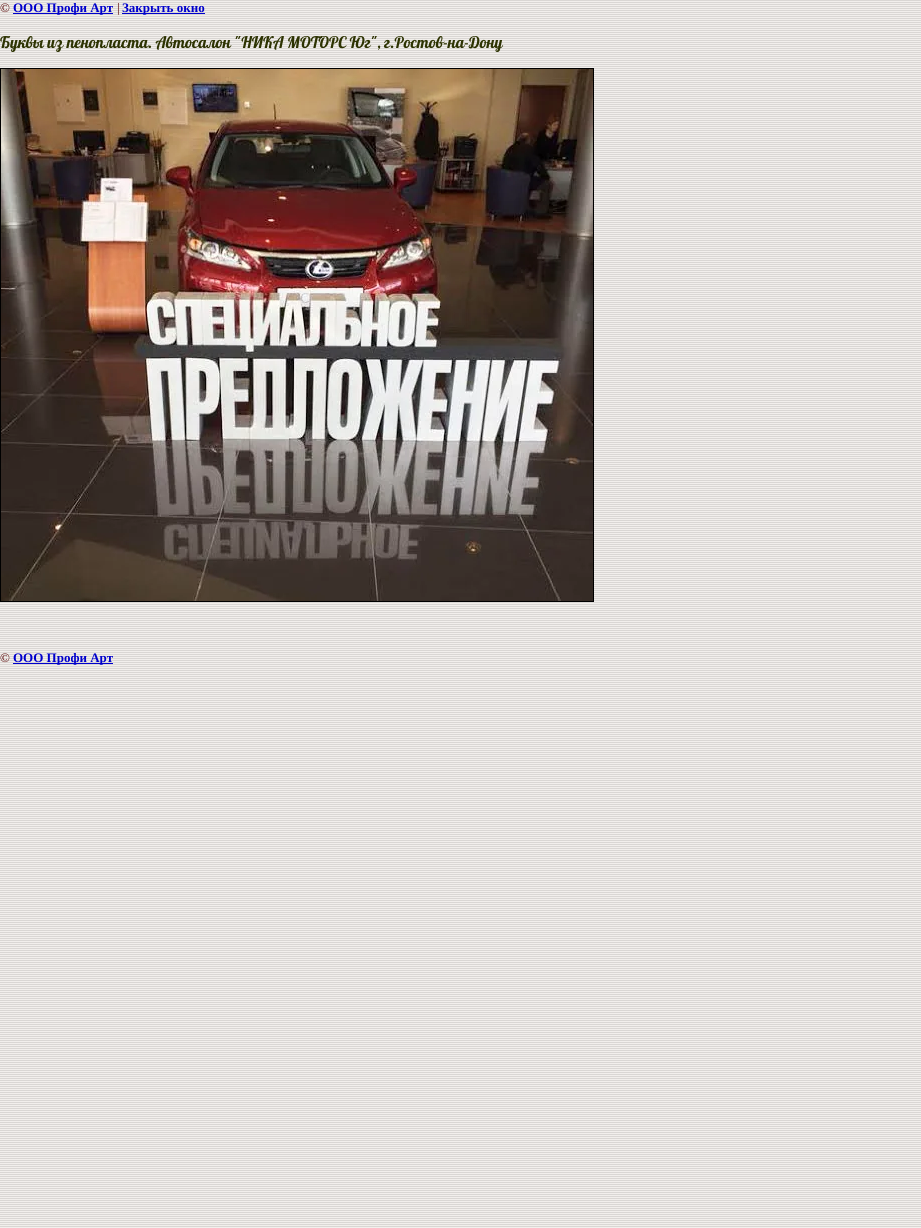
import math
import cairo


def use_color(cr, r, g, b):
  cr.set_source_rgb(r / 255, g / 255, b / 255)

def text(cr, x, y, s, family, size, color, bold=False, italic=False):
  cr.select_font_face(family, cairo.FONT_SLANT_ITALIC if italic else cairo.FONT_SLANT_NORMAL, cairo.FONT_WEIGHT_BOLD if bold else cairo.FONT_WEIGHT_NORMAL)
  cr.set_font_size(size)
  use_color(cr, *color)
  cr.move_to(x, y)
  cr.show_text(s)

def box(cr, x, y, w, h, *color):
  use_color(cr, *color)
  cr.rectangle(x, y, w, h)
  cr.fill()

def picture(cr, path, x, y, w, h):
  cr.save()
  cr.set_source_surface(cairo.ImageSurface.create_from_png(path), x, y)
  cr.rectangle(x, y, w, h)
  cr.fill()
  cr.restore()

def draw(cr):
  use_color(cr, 255, 255, 255)
  cr.paint()
  picture(cr, "img_01.png", 0, 0, 921, 1228)
  box(cr, 13, 13, 100, 1, 0, 0, 204)
  box(cr, 122, 13, 83, 1, 0, 0, 204)
  cr.rectangle(0.5, 68.5, 593, 533)
  use_color(cr, 0, 0, 0)
  cr.set_line_width(1)
  cr.stroke()
  picture(cr, "img_02.png", 1, 69, 592, 532)
  box(cr, 13, 663, 100, 1, 0, 0, 204)
  text(cr, 0, 12, "©", "Liberation Serif", 13, (86, 0, 0))
  text(cr, 13, 12, "ООО Профи Арт", "Liberation Serif", 13, (0, 0, 204), bold=True)
  text(cr, 117, 12, "|", "Liberation Serif", 13, (86, 0, 0))
  text(cr, 122, 12, "Закрыть окно", "Liberation Serif", 13, (0, 0, 204), bold=True)
  text(cr, 0, 48, "Буквы из пенопласта. Автосалон \"НИКА МОТОРС Юг\", г.Ростов-на-Дону", "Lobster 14", 16, (45, 51, 2))
  text(cr, 0, 662, "©", "Liberation Serif", 13, (86, 0, 0))
  text(cr, 13, 662, "ООО Профи Арт", "Liberation Serif", 13, (0, 0, 204), bold=True)


surface = cairo.ImageSurface(cairo.FORMAT_RGB24, 921, 1228)
cr = cairo.Context(surface)
options = cairo.FontOptions()
options.set_hint_metrics(cairo.HINT_METRICS_OFF)
options.set_hint_style(cairo.HINT_STYLE_NONE)
cr.set_font_options(options)
cr.set_miter_limit(4)
draw(cr)
surface.write_to_png("out.png")
